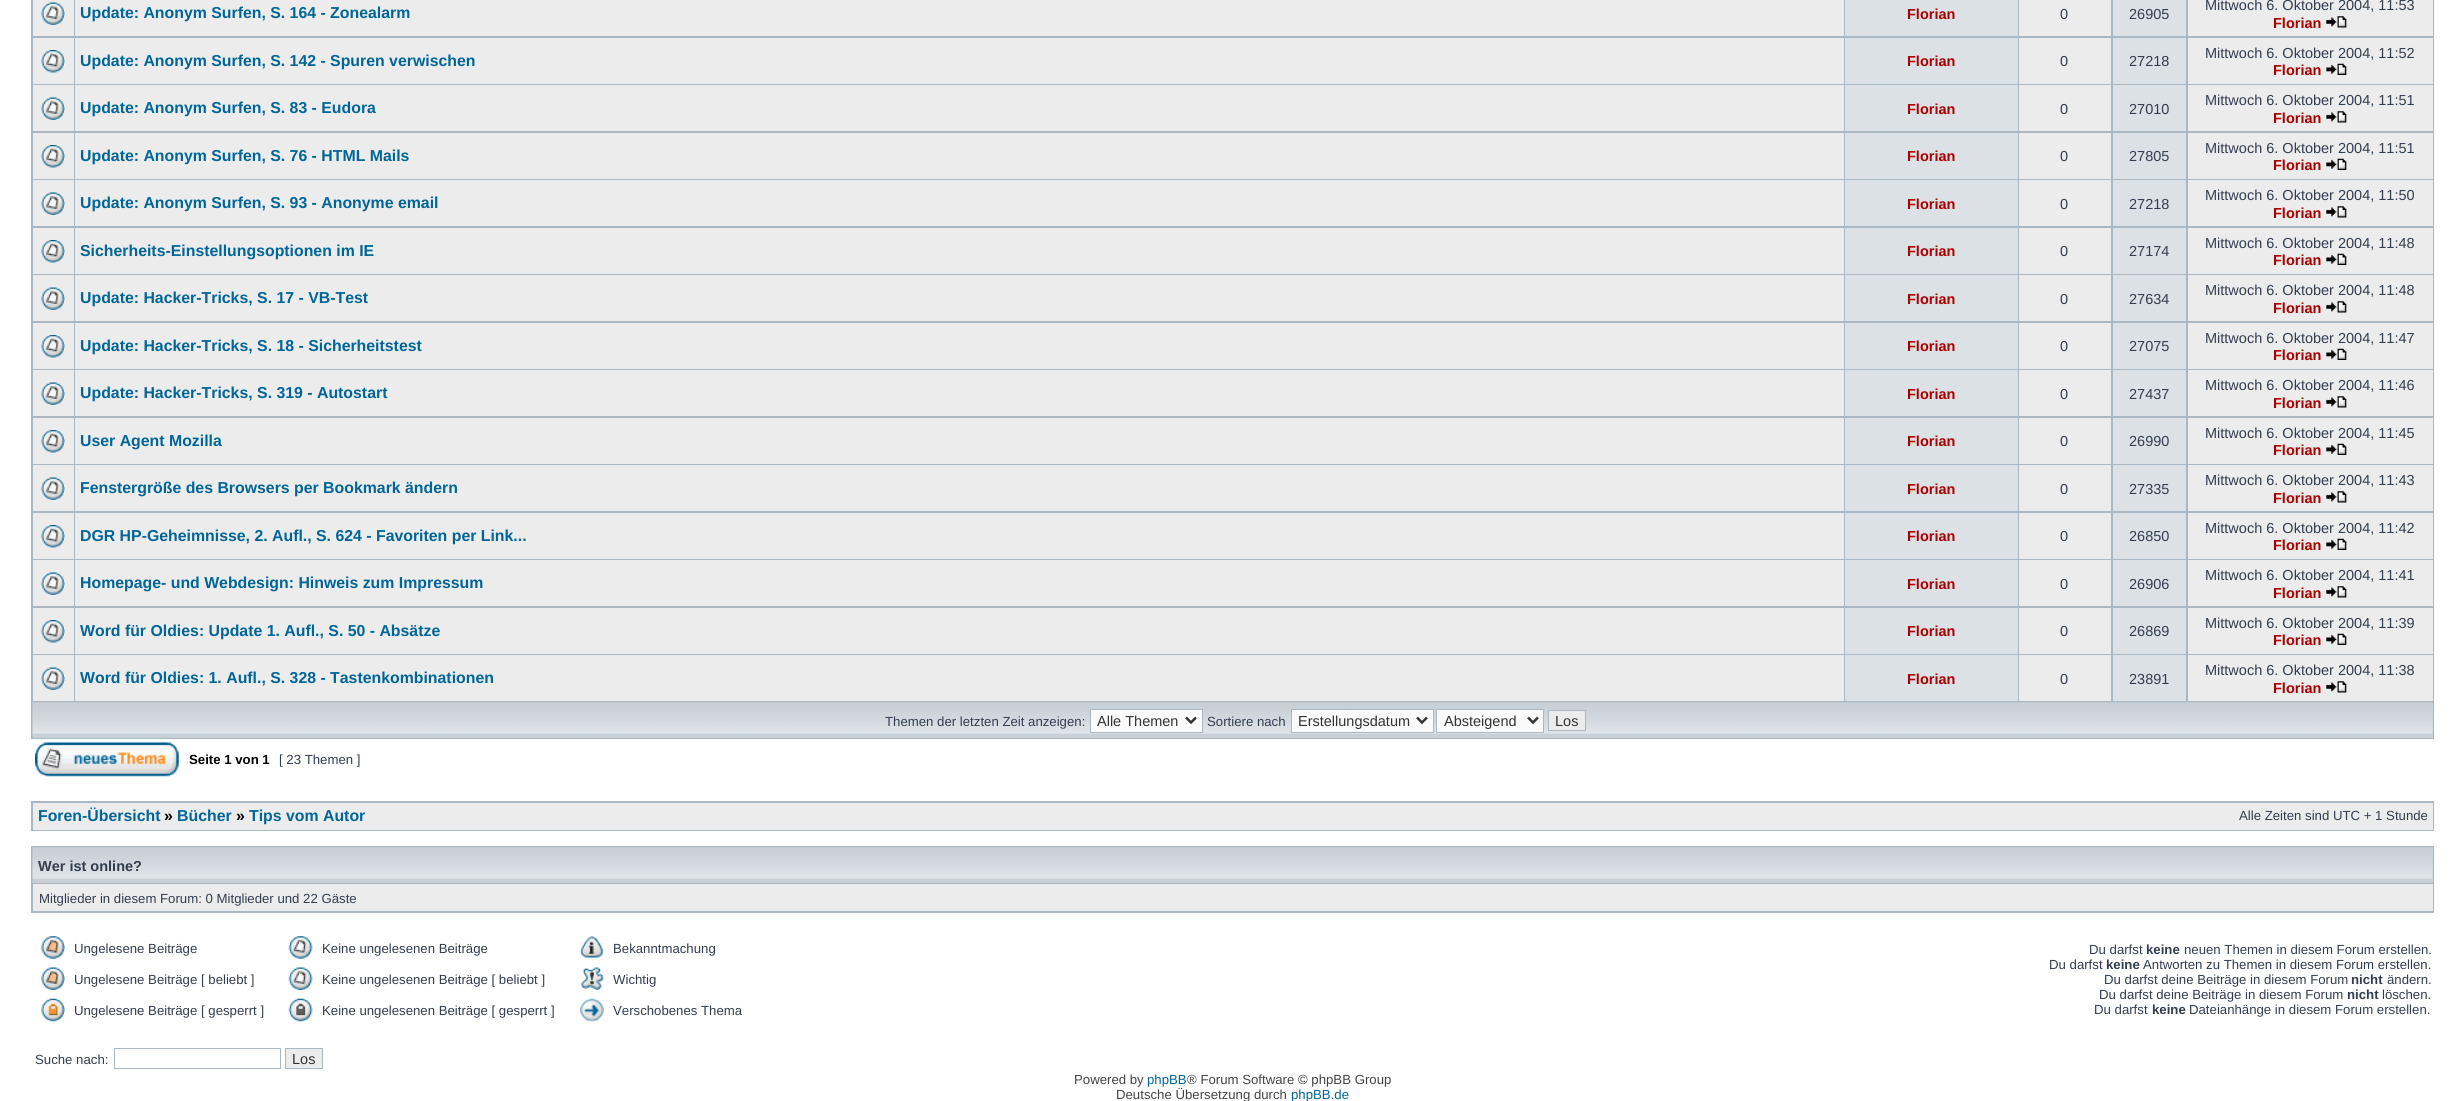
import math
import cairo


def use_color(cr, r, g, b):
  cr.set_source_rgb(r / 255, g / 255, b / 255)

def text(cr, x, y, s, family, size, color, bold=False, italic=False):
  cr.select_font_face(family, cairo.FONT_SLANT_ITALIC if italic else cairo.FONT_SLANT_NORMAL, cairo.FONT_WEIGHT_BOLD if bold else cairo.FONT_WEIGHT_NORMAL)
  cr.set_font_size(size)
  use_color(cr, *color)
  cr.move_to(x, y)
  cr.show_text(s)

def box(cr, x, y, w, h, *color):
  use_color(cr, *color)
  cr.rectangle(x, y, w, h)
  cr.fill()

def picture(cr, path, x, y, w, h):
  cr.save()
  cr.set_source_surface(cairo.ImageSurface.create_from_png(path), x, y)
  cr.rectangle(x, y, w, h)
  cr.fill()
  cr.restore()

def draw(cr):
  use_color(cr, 255, 255, 255)
  cr.paint()
  box(cr, 31, 0, 2403, 739, 169, 184, 194)
  box(cr, 33, 0, 41, 36, 236, 236, 236)
  picture(cr, "img_01.png", 41, 2, 24, 23)
  box(cr, 75, 0, 1769, 36, 236, 236, 236)
  box(cr, 1845, 0, 173, 36, 220, 225, 229)
  box(cr, 2019, 0, 92, 36, 236, 236, 236)
  box(cr, 2113, 0, 73, 36, 220, 225, 229)
  box(cr, 2188, 0, 245, 36, 236, 236, 236)
  picture(cr, "img_02.png", 2326, 16, 21, 12)
  box(cr, 33, 38, 41, 46, 236, 236, 236)
  picture(cr, "img_03.png", 41, 50, 24, 23)
  box(cr, 75, 38, 1769, 46, 236, 236, 236)
  box(cr, 1845, 38, 173, 46, 220, 225, 229)
  box(cr, 2019, 38, 92, 46, 236, 236, 236)
  box(cr, 2113, 38, 73, 46, 220, 225, 229)
  box(cr, 2188, 38, 245, 46, 236, 236, 236)
  picture(cr, "img_04.png", 2326, 63, 21, 12)
  box(cr, 33, 85, 41, 46, 236, 236, 236)
  picture(cr, "img_01.png", 41, 97, 24, 23)
  box(cr, 75, 85, 1769, 46, 236, 236, 236)
  box(cr, 1845, 85, 173, 46, 220, 225, 229)
  box(cr, 2019, 85, 92, 46, 236, 236, 236)
  box(cr, 2113, 85, 73, 46, 220, 225, 229)
  box(cr, 2188, 85, 245, 46, 236, 236, 236)
  picture(cr, "img_02.png", 2326, 111, 21, 12)
  box(cr, 33, 133, 41, 46, 236, 236, 236)
  picture(cr, "img_03.png", 41, 145, 24, 23)
  box(cr, 75, 133, 1769, 46, 236, 236, 236)
  box(cr, 1845, 133, 173, 46, 220, 225, 229)
  box(cr, 2019, 133, 92, 46, 236, 236, 236)
  box(cr, 2113, 133, 73, 46, 220, 225, 229)
  box(cr, 2188, 133, 245, 46, 236, 236, 236)
  picture(cr, "img_04.png", 2326, 158, 21, 12)
  box(cr, 33, 180, 41, 46, 236, 236, 236)
  picture(cr, "img_01.png", 41, 192, 24, 23)
  box(cr, 75, 180, 1769, 46, 236, 236, 236)
  box(cr, 1845, 180, 173, 46, 220, 225, 229)
  box(cr, 2019, 180, 92, 46, 236, 236, 236)
  box(cr, 2113, 180, 73, 46, 220, 225, 229)
  box(cr, 2188, 180, 245, 46, 236, 236, 236)
  picture(cr, "img_02.png", 2326, 206, 21, 12)
  box(cr, 33, 228, 41, 46, 236, 236, 236)
  picture(cr, "img_03.png", 41, 240, 24, 23)
  box(cr, 75, 228, 1769, 46, 236, 236, 236)
  box(cr, 1845, 228, 173, 46, 220, 225, 229)
  box(cr, 2019, 228, 92, 46, 236, 236, 236)
  box(cr, 2113, 228, 73, 46, 220, 225, 229)
  box(cr, 2188, 228, 245, 46, 236, 236, 236)
  picture(cr, "img_04.png", 2326, 253, 21, 12)
  box(cr, 33, 275, 41, 46, 236, 236, 236)
  picture(cr, "img_05.png", 41, 287, 24, 23)
  box(cr, 75, 275, 1769, 46, 236, 236, 236)
  box(cr, 1845, 275, 173, 46, 220, 225, 229)
  box(cr, 2019, 275, 92, 46, 236, 236, 236)
  box(cr, 2113, 275, 73, 46, 220, 225, 229)
  box(cr, 2188, 275, 245, 46, 236, 236, 236)
  picture(cr, "img_02.png", 2326, 301, 21, 12)
  box(cr, 33, 323, 41, 46, 236, 236, 236)
  picture(cr, "img_03.png", 41, 335, 24, 23)
  box(cr, 75, 323, 1769, 46, 236, 236, 236)
  box(cr, 1845, 323, 173, 46, 220, 225, 229)
  box(cr, 2019, 323, 92, 46, 236, 236, 236)
  box(cr, 2113, 323, 73, 46, 220, 225, 229)
  box(cr, 2188, 323, 245, 46, 236, 236, 236)
  picture(cr, "img_04.png", 2326, 348, 21, 12)
  box(cr, 33, 370, 41, 46, 236, 236, 236)
  picture(cr, "img_01.png", 41, 382, 24, 23)
  box(cr, 75, 370, 1769, 46, 236, 236, 236)
  box(cr, 1845, 370, 173, 46, 220, 225, 229)
  box(cr, 2019, 370, 92, 46, 236, 236, 236)
  box(cr, 2113, 370, 73, 46, 220, 225, 229)
  box(cr, 2188, 370, 245, 46, 236, 236, 236)
  picture(cr, "img_02.png", 2326, 396, 21, 12)
  box(cr, 33, 418, 41, 46, 236, 236, 236)
  picture(cr, "img_03.png", 41, 430, 24, 23)
  box(cr, 75, 418, 1769, 46, 236, 236, 236)
  box(cr, 1845, 418, 173, 46, 220, 225, 229)
  box(cr, 2019, 418, 92, 46, 236, 236, 236)
  box(cr, 2113, 418, 73, 46, 220, 225, 229)
  box(cr, 2188, 418, 245, 46, 236, 236, 236)
  picture(cr, "img_04.png", 2326, 443, 21, 12)
  box(cr, 33, 465, 41, 46, 236, 236, 236)
  picture(cr, "img_01.png", 41, 477, 24, 23)
  box(cr, 75, 465, 1769, 46, 236, 236, 236)
  box(cr, 1845, 465, 173, 46, 220, 225, 229)
  box(cr, 2019, 465, 92, 46, 236, 236, 236)
  box(cr, 2113, 465, 73, 46, 220, 225, 229)
  box(cr, 2188, 465, 245, 46, 236, 236, 236)
  picture(cr, "img_02.png", 2326, 491, 21, 12)
  box(cr, 33, 513, 41, 46, 236, 236, 236)
  picture(cr, "img_03.png", 41, 525, 24, 23)
  box(cr, 75, 513, 1769, 46, 236, 236, 236)
  box(cr, 1845, 513, 173, 46, 220, 225, 229)
  box(cr, 2019, 513, 92, 46, 236, 236, 236)
  box(cr, 2113, 513, 73, 46, 220, 225, 229)
  box(cr, 2188, 513, 245, 46, 236, 236, 236)
  picture(cr, "img_04.png", 2326, 538, 21, 12)
  box(cr, 33, 560, 41, 46, 236, 236, 236)
  picture(cr, "img_01.png", 41, 572, 24, 23)
  box(cr, 75, 560, 1769, 46, 236, 236, 236)
  box(cr, 1845, 560, 173, 46, 220, 225, 229)
  box(cr, 2019, 560, 92, 46, 236, 236, 236)
  box(cr, 2113, 560, 73, 46, 220, 225, 229)
  box(cr, 2188, 560, 245, 46, 236, 236, 236)
  picture(cr, "img_02.png", 2326, 586, 21, 12)
  box(cr, 33, 608, 41, 46, 236, 236, 236)
  picture(cr, "img_03.png", 41, 620, 24, 23)
  box(cr, 75, 608, 1769, 46, 236, 236, 236)
  box(cr, 1845, 608, 173, 46, 220, 225, 229)
  box(cr, 2019, 608, 92, 46, 236, 236, 236)
  box(cr, 2113, 608, 73, 46, 220, 225, 229)
  box(cr, 2188, 608, 245, 46, 236, 236, 236)
  picture(cr, "img_04.png", 2326, 633, 21, 12)
  box(cr, 33, 655, 41, 46, 236, 236, 236)
  picture(cr, "img_01.png", 41, 667, 24, 23)
  box(cr, 75, 655, 1769, 46, 236, 236, 236)
  box(cr, 1845, 655, 173, 46, 220, 225, 229)
  box(cr, 2019, 655, 92, 46, 236, 236, 236)
  box(cr, 2113, 655, 73, 46, 220, 225, 229)
  box(cr, 2188, 655, 245, 46, 236, 236, 236)
  picture(cr, "img_02.png", 2326, 681, 21, 12)
  box(cr, 33, 703, 2400, 35, 199, 208, 215)
  picture(cr, "img_06.png", 32, 702, 2401, 36)
  use_color(cr, 250, 250, 250)
  cr.rectangle(1090.5, 709.5, 112, 23)
  cr.fill_preserve()
  use_color(cr, 169, 184, 194)
  cr.set_line_width(1)
  cr.stroke()
  cr.new_path()
  cr.move_to(1186, 717.5)
  cr.line_to(1191, 722.5)
  cr.line_to(1196, 717.5)
  use_color(cr, 51, 51, 51)
  cr.set_line_width(2.5)
  cr.stroke()
  use_color(cr, 250, 250, 250)
  cr.rectangle(1291.5, 709.5, 142, 23)
  cr.fill_preserve()
  use_color(cr, 169, 184, 194)
  cr.set_line_width(1)
  cr.stroke()
  cr.new_path()
  cr.move_to(1417, 717.5)
  cr.line_to(1422, 722.5)
  cr.line_to(1427, 717.5)
  use_color(cr, 51, 51, 51)
  cr.set_line_width(2.5)
  cr.stroke()
  use_color(cr, 250, 250, 250)
  cr.rectangle(1436.5, 709.5, 107, 23)
  cr.fill_preserve()
  use_color(cr, 169, 184, 194)
  cr.set_line_width(1)
  cr.stroke()
  cr.new_path()
  cr.move_to(1528, 717.5)
  cr.line_to(1533, 722.5)
  cr.line_to(1538, 717.5)
  use_color(cr, 51, 51, 51)
  cr.set_line_width(2.5)
  cr.stroke()
  use_color(cr, 236, 236, 236)
  cr.rectangle(1548.5, 710.5, 37, 20)
  cr.fill_preserve()
  use_color(cr, 169, 184, 194)
  cr.set_line_width(1)
  cr.stroke()
  picture(cr, "img_07.png", 35, 742, 144, 35)
  box(cr, 31, 801, 2403, 30, 169, 184, 194)
  box(cr, 33, 803, 2400, 27, 236, 236, 236)
  box(cr, 31, 846, 2403, 67, 169, 184, 194)
  box(cr, 33, 848, 2400, 35, 199, 208, 215)
  picture(cr, "img_06.png", 32, 847, 2401, 36)
  box(cr, 33, 884, 2400, 27, 236, 236, 236)
  picture(cr, "img_08.png", 41, 936, 24, 23)
  picture(cr, "img_09.png", 288, 936, 25, 23)
  picture(cr, "img_10.png", 580, 936, 24, 22)
  picture(cr, "img_11.png", 41, 967, 24, 23)
  picture(cr, "img_12.png", 288, 967, 25, 23)
  picture(cr, "img_13.png", 581, 967, 23, 23)
  picture(cr, "img_14.png", 41, 998, 24, 24)
  picture(cr, "img_15.png", 288, 998, 25, 24)
  picture(cr, "img_16.png", 580, 998, 24, 24)
  cr.rectangle(114.5, 1048.5, 166, 20)
  use_color(cr, 169, 184, 194)
  cr.stroke()
  use_color(cr, 236, 236, 236)
  cr.rectangle(285.5, 1048.5, 37, 20)
  cr.fill_preserve()
  use_color(cr, 169, 184, 194)
  cr.stroke()
  text(cr, 80, 18, "Update: Anonym Surfen, S. 164 - Zonealarm", "Liberation Sans", 15.85, (0, 101, 151), bold=True)
  text(cr, 1907, 19, "Florian", "Liberation Sans", 14.5, (170, 0, 0), bold=True)
  text(cr, 2060, 19, "0", "Liberation Sans", 14.5, (50, 61, 79))
  text(cr, 2129, 19, "26905", "Liberation Sans", 14.5, (50, 61, 79))
  text(cr, 2205, 10, "Mittwoch 6. Oktober 2004, 11:53", "Liberation Sans", 14.5, (50, 61, 79))
  text(cr, 2273, 28, "Florian", "Liberation Sans", 14.5, (170, 0, 0), bold=True)
  text(cr, 80, 66, "Update: Anonym Surfen, S. 142 - Spuren verwischen", "Liberation Sans", 15.85, (0, 101, 151), bold=True)
  text(cr, 1907, 66, "Florian", "Liberation Sans", 14.5, (170, 0, 0), bold=True)
  text(cr, 2060, 66, "0", "Liberation Sans", 14.5, (50, 61, 79))
  text(cr, 2129, 66, "27218", "Liberation Sans", 14.5, (50, 61, 79))
  text(cr, 2205, 58, "Mittwoch 6. Oktober 2004, 11:52", "Liberation Sans", 14.5, (50, 61, 79))
  text(cr, 2273, 75, "Florian", "Liberation Sans", 14.5, (170, 0, 0), bold=True)
  text(cr, 80, 113, "Update: Anonym Surfen, S. 83 - Eudora", "Liberation Sans", 15.85, (0, 101, 151), bold=True)
  text(cr, 1907, 114, "Florian", "Liberation Sans", 14.5, (170, 0, 0), bold=True)
  text(cr, 2060, 114, "0", "Liberation Sans", 14.5, (50, 61, 79))
  text(cr, 2129, 114, "27010", "Liberation Sans", 14.5, (50, 61, 79))
  text(cr, 2205, 105, "Mittwoch 6. Oktober 2004, 11:51", "Liberation Sans", 14.5, (50, 61, 79))
  text(cr, 2273, 123, "Florian", "Liberation Sans", 14.5, (170, 0, 0), bold=True)
  text(cr, 80, 161, "Update: Anonym Surfen, S. 76 - HTML Mails", "Liberation Sans", 15.85, (0, 101, 151), bold=True)
  text(cr, 1907, 161, "Florian", "Liberation Sans", 14.5, (170, 0, 0), bold=True)
  text(cr, 2060, 161, "0", "Liberation Sans", 14.5, (50, 61, 79))
  text(cr, 2129, 161, "27805", "Liberation Sans", 14.5, (50, 61, 79))
  text(cr, 2205, 153, "Mittwoch 6. Oktober 2004, 11:51", "Liberation Sans", 14.5, (50, 61, 79))
  text(cr, 2273, 170, "Florian", "Liberation Sans", 14.5, (170, 0, 0), bold=True)
  text(cr, 80, 208, "Update: Anonym Surfen, S. 93 - Anonyme email", "Liberation Sans", 15.85, (0, 101, 151), bold=True)
  text(cr, 1907, 209, "Florian", "Liberation Sans", 14.5, (170, 0, 0), bold=True)
  text(cr, 2060, 209, "0", "Liberation Sans", 14.5, (50, 61, 79))
  text(cr, 2129, 209, "27218", "Liberation Sans", 14.5, (50, 61, 79))
  text(cr, 2205, 200, "Mittwoch 6. Oktober 2004, 11:50", "Liberation Sans", 14.5, (50, 61, 79))
  text(cr, 2273, 218, "Florian", "Liberation Sans", 14.5, (170, 0, 0), bold=True)
  text(cr, 80, 256, "Sicherheits-Einstellungsoptionen im IE", "Liberation Sans", 15.85, (0, 101, 151), bold=True)
  text(cr, 1907, 256, "Florian", "Liberation Sans", 14.5, (170, 0, 0), bold=True)
  text(cr, 2060, 256, "0", "Liberation Sans", 14.5, (50, 61, 79))
  text(cr, 2129, 256, "27174", "Liberation Sans", 14.5, (50, 61, 79))
  text(cr, 2205, 248, "Mittwoch 6. Oktober 2004, 11:48", "Liberation Sans", 14.5, (50, 61, 79))
  text(cr, 2273, 265, "Florian", "Liberation Sans", 14.5, (170, 0, 0), bold=True)
  text(cr, 80, 303, "Update: Hacker-Tricks, S. 17 - VB-Test", "Liberation Sans", 15.85, (0, 101, 151), bold=True)
  text(cr, 1907, 304, "Florian", "Liberation Sans", 14.5, (170, 0, 0), bold=True)
  text(cr, 2060, 304, "0", "Liberation Sans", 14.5, (50, 61, 79))
  text(cr, 2129, 304, "27634", "Liberation Sans", 14.5, (50, 61, 79))
  text(cr, 2205, 295, "Mittwoch 6. Oktober 2004, 11:48", "Liberation Sans", 14.5, (50, 61, 79))
  text(cr, 2273, 313, "Florian", "Liberation Sans", 14.5, (170, 0, 0), bold=True)
  text(cr, 80, 351, "Update: Hacker-Tricks, S. 18 - Sicherheitstest", "Liberation Sans", 15.85, (0, 101, 151), bold=True)
  text(cr, 1907, 351, "Florian", "Liberation Sans", 14.5, (170, 0, 0), bold=True)
  text(cr, 2060, 351, "0", "Liberation Sans", 14.5, (50, 61, 79))
  text(cr, 2129, 351, "27075", "Liberation Sans", 14.5, (50, 61, 79))
  text(cr, 2205, 343, "Mittwoch 6. Oktober 2004, 11:47", "Liberation Sans", 14.5, (50, 61, 79))
  text(cr, 2273, 360, "Florian", "Liberation Sans", 14.5, (170, 0, 0), bold=True)
  text(cr, 80, 398, "Update: Hacker-Tricks, S. 319 - Autostart", "Liberation Sans", 15.85, (0, 101, 151), bold=True)
  text(cr, 1907, 399, "Florian", "Liberation Sans", 14.5, (170, 0, 0), bold=True)
  text(cr, 2060, 399, "0", "Liberation Sans", 14.5, (50, 61, 79))
  text(cr, 2129, 399, "27437", "Liberation Sans", 14.5, (50, 61, 79))
  text(cr, 2205, 390, "Mittwoch 6. Oktober 2004, 11:46", "Liberation Sans", 14.5, (50, 61, 79))
  text(cr, 2273, 408, "Florian", "Liberation Sans", 14.5, (170, 0, 0), bold=True)
  text(cr, 80, 446, "User Agent Mozilla", "Liberation Sans", 15.85, (0, 101, 151), bold=True)
  text(cr, 1907, 446, "Florian", "Liberation Sans", 14.5, (170, 0, 0), bold=True)
  text(cr, 2060, 446, "0", "Liberation Sans", 14.5, (50, 61, 79))
  text(cr, 2129, 446, "26990", "Liberation Sans", 14.5, (50, 61, 79))
  text(cr, 2205, 438, "Mittwoch 6. Oktober 2004, 11:45", "Liberation Sans", 14.5, (50, 61, 79))
  text(cr, 2273, 455, "Florian", "Liberation Sans", 14.5, (170, 0, 0), bold=True)
  text(cr, 80, 493, "Fenstergröße des Browsers per Bookmark ändern", "Liberation Sans", 15.85, (0, 101, 151), bold=True)
  text(cr, 1907, 494, "Florian", "Liberation Sans", 14.5, (170, 0, 0), bold=True)
  text(cr, 2060, 494, "0", "Liberation Sans", 14.5, (50, 61, 79))
  text(cr, 2129, 494, "27335", "Liberation Sans", 14.5, (50, 61, 79))
  text(cr, 2205, 485, "Mittwoch 6. Oktober 2004, 11:43", "Liberation Sans", 14.5, (50, 61, 79))
  text(cr, 2273, 503, "Florian", "Liberation Sans", 14.5, (170, 0, 0), bold=True)
  text(cr, 80, 541, "DGR HP-Geheimnisse, 2. Aufl., S. 624 - Favoriten per Link...", "Liberation Sans", 15.85, (0, 101, 151), bold=True)
  text(cr, 1907, 541, "Florian", "Liberation Sans", 14.5, (170, 0, 0), bold=True)
  text(cr, 2060, 541, "0", "Liberation Sans", 14.5, (50, 61, 79))
  text(cr, 2129, 541, "26850", "Liberation Sans", 14.5, (50, 61, 79))
  text(cr, 2205, 533, "Mittwoch 6. Oktober 2004, 11:42", "Liberation Sans", 14.5, (50, 61, 79))
  text(cr, 2273, 550, "Florian", "Liberation Sans", 14.5, (170, 0, 0), bold=True)
  text(cr, 80, 588, "Homepage- und Webdesign: Hinweis zum Impressum", "Liberation Sans", 15.85, (0, 101, 151), bold=True)
  text(cr, 1907, 589, "Florian", "Liberation Sans", 14.5, (170, 0, 0), bold=True)
  text(cr, 2060, 589, "0", "Liberation Sans", 14.5, (50, 61, 79))
  text(cr, 2129, 589, "26906", "Liberation Sans", 14.5, (50, 61, 79))
  text(cr, 2205, 580, "Mittwoch 6. Oktober 2004, 11:41", "Liberation Sans", 14.5, (50, 61, 79))
  text(cr, 2273, 598, "Florian", "Liberation Sans", 14.5, (170, 0, 0), bold=True)
  text(cr, 80, 636, "Word für Oldies: Update 1. Aufl., S. 50 - Absätze", "Liberation Sans", 15.85, (0, 101, 151), bold=True)
  text(cr, 1907, 636, "Florian", "Liberation Sans", 14.5, (170, 0, 0), bold=True)
  text(cr, 2060, 636, "0", "Liberation Sans", 14.5, (50, 61, 79))
  text(cr, 2129, 636, "26869", "Liberation Sans", 14.5, (50, 61, 79))
  text(cr, 2205, 628, "Mittwoch 6. Oktober 2004, 11:39", "Liberation Sans", 14.5, (50, 61, 79))
  text(cr, 2273, 645, "Florian", "Liberation Sans", 14.5, (170, 0, 0), bold=True)
  text(cr, 80, 683, "Word für Oldies: 1. Aufl., S. 328 - Tastenkombinationen", "Liberation Sans", 15.85, (0, 101, 151), bold=True)
  text(cr, 1907, 684, "Florian", "Liberation Sans", 14.5, (170, 0, 0), bold=True)
  text(cr, 2060, 684, "0", "Liberation Sans", 14.5, (50, 61, 79))
  text(cr, 2129, 684, "23891", "Liberation Sans", 14.5, (50, 61, 79))
  text(cr, 2205, 675, "Mittwoch 6. Oktober 2004, 11:38", "Liberation Sans", 14.5, (50, 61, 79))
  text(cr, 2273, 693, "Florian", "Liberation Sans", 14.5, (170, 0, 0), bold=True)
  text(cr, 885, 726, "Themen der letzten Zeit anzeigen:", "Liberation Sans", 13.2, (50, 61, 79))
  text(cr, 1097, 726, "Alle Themen", "Liberation Sans", 14.5, (51, 51, 51))
  text(cr, 1207, 726, "Sortiere nach", "Liberation Sans", 13.2, (50, 61, 79))
  text(cr, 1298, 726, "Erstellungsdatum", "Liberation Sans", 14.5, (51, 51, 51))
  text(cr, 1444, 726, "Absteigend", "Liberation Sans", 14.5, (51, 51, 51))
  text(cr, 1555, 726, "Los", "Liberation Sans", 14.5, (51, 51, 51))
  text(cr, 189, 764, "Seite 1 von 1", "Liberation Sans", 13.2, (0, 0, 0), bold=True)
  text(cr, 279, 764, "[ 23 Themen ]", "Liberation Sans", 13.2, (50, 61, 79))
  text(cr, 38, 821, "Foren-Übersicht", "Liberation Sans", 15.85, (0, 101, 151), bold=True)
  text(cr, 164, 821, "»", "Liberation Sans", 15.85, (0, 0, 0), bold=True)
  text(cr, 177, 821, "Bücher", "Liberation Sans", 15.85, (0, 101, 151), bold=True)
  text(cr, 236, 821, "»", "Liberation Sans", 15.85, (0, 0, 0), bold=True)
  text(cr, 249, 821, "Tips vom Autor", "Liberation Sans", 15.85, (0, 101, 151), bold=True)
  text(cr, 2239, 820, "Alle Zeiten sind UTC + 1 Stunde", "Liberation Sans", 13.2, (50, 61, 79))
  text(cr, 38, 871, "Wer ist online?", "Liberation Sans", 14.5, (50, 61, 79), bold=True)
  text(cr, 39, 903, "Mitglieder in diesem Forum: 0 Mitglieder und 22 Gäste", "Liberation Sans", 13.2, (50, 61, 79))
  text(cr, 74, 953, "Ungelesene Beiträge", "Liberation Sans", 13.2, (50, 61, 79))
  text(cr, 322, 953, "Keine ungelesenen Beiträge", "Liberation Sans", 13.2, (50, 61, 79))
  text(cr, 613, 953, "Bekanntmachung", "Liberation Sans", 13.2, (50, 61, 79))
  text(cr, 74, 984, "Ungelesene Beiträge [ beliebt ]", "Liberation Sans", 13.2, (50, 61, 79))
  text(cr, 322, 984, "Keine ungelesenen Beiträge [ beliebt ]", "Liberation Sans", 13.2, (50, 61, 79))
  text(cr, 613, 984, "Wichtig", "Liberation Sans", 13.2, (50, 61, 79))
  text(cr, 74, 1015, "Ungelesene Beiträge [ gesperrt ]", "Liberation Sans", 13.2, (50, 61, 79))
  text(cr, 322, 1015, "Keine ungelesenen Beiträge [ gesperrt ]", "Liberation Sans", 13.2, (50, 61, 79))
  text(cr, 613, 1015, "Verschobenes Thema", "Liberation Sans", 13.2, (50, 61, 79))
  text(cr, 2089, 954, "Du darfst", "Liberation Sans", 13.2, (50, 61, 79))
  text(cr, 2146, 954, "keine", "Liberation Sans", 13.2, (50, 61, 79), bold=True)
  text(cr, 2184, 954, "neuen Themen in diesem Forum erstellen.", "Liberation Sans", 13.2, (50, 61, 79))
  text(cr, 2049, 969, "Du darfst", "Liberation Sans", 13.2, (50, 61, 79))
  text(cr, 2106, 969, "keine", "Liberation Sans", 13.2, (50, 61, 79), bold=True)
  text(cr, 2143, 969, "Antworten zu Themen in diesem Forum erstellen.", "Liberation Sans", 13.2, (50, 61, 79))
  text(cr, 2104, 984, "Du darfst deine Beiträge in diesem Forum", "Liberation Sans", 13.2, (50, 61, 79))
  text(cr, 2351, 984, "nicht", "Liberation Sans", 13.2, (50, 61, 79), bold=True)
  text(cr, 2387, 984, "ändern.", "Liberation Sans", 13.2, (50, 61, 79))
  text(cr, 2099, 999, "Du darfst deine Beiträge in diesem Forum", "Liberation Sans", 13.2, (50, 61, 79))
  text(cr, 2347, 999, "nicht", "Liberation Sans", 13.2, (50, 61, 79), bold=True)
  text(cr, 2382, 999, "löschen.", "Liberation Sans", 13.2, (50, 61, 79))
  text(cr, 2094, 1014, "Du darfst", "Liberation Sans", 13.2, (50, 61, 79))
  text(cr, 2152, 1014, "keine", "Liberation Sans", 13.2, (50, 61, 79), bold=True)
  text(cr, 2189, 1014, "Dateianhänge in diesem Forum erstellen.", "Liberation Sans", 13.2, (50, 61, 79))
  text(cr, 35, 1064, "Suche nach:", "Liberation Sans", 13.2, (50, 61, 79))
  text(cr, 292, 1064, "Los", "Liberation Sans", 14.5, (51, 51, 51))
  text(cr, 1074, 1084, "Powered by", "Liberation Sans", 13.2, (68, 68, 68))
  text(cr, 1147, 1084, "phpBB", "Liberation Sans", 13.2, (0, 101, 151))
  text(cr, 1187, 1084, "® Forum Software © phpBB Group", "Liberation Sans", 13.2, (68, 68, 68))
  text(cr, 1116, 1099, "Deutsche Übersetzung durch", "Liberation Sans", 13.2, (68, 68, 68))
  text(cr, 1291, 1099, "phpBB.de", "Liberation Sans", 13.2, (0, 101, 151))


surface = cairo.ImageSurface(cairo.FORMAT_RGB24, 2464, 1101)
cr = cairo.Context(surface)
options = cairo.FontOptions()
options.set_hint_metrics(cairo.HINT_METRICS_OFF)
options.set_hint_style(cairo.HINT_STYLE_NONE)
cr.set_font_options(options)
cr.set_miter_limit(4)
draw(cr)
surface.write_to_png("out.png")
